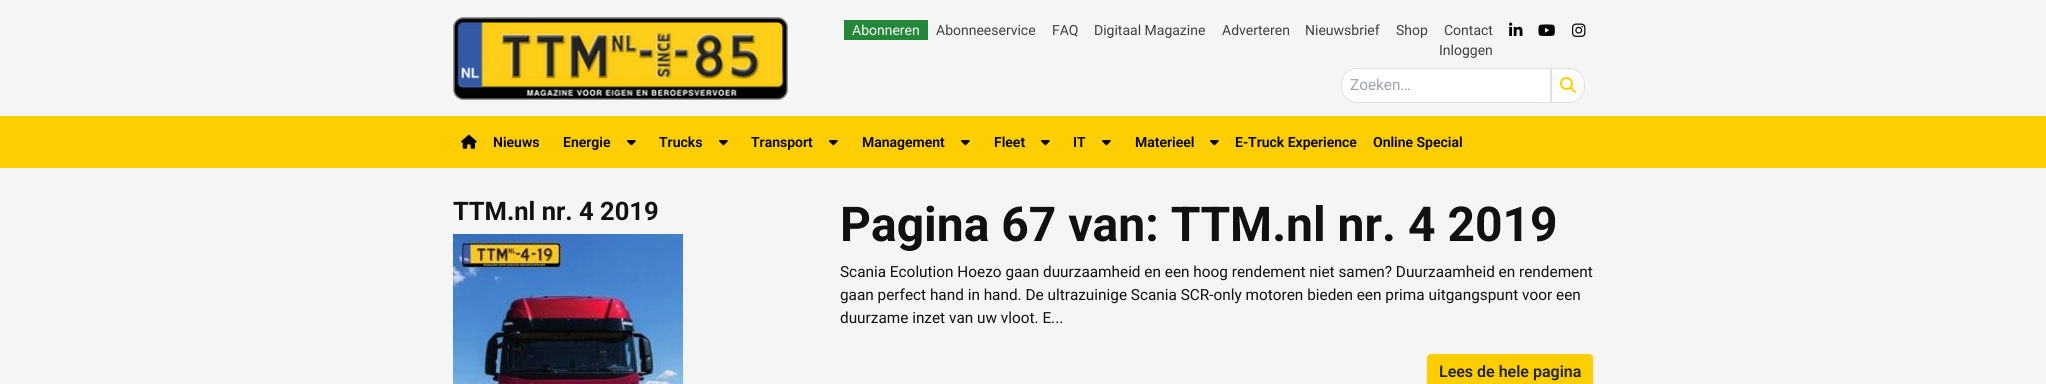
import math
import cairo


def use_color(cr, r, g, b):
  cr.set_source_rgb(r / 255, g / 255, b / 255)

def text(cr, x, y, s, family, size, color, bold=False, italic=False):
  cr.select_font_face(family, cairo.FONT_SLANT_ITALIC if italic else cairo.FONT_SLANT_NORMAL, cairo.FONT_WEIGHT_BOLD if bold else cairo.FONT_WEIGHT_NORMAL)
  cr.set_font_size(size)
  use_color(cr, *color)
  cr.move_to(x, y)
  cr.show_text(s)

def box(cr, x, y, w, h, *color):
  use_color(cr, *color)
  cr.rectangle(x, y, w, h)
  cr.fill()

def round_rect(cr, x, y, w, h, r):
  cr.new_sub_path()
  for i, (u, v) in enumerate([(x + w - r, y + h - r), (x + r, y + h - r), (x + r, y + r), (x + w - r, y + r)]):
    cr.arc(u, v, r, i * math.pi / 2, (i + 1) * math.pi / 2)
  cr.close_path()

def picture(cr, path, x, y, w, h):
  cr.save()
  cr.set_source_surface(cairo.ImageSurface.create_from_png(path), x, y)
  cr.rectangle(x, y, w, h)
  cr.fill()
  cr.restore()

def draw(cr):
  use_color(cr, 245, 245, 245)
  cr.paint()
  picture(cr, "img_01.png", 453, 17, 335, 83)
  box(cr, 844, 20, 84, 20, 34, 135, 54)
  picture(cr, "img_02.png", 1509, 22, 14, 14)
  picture(cr, "img_03.png", 1538, 24, 17, 12)
  picture(cr, "img_04.png", 1572, 23, 14, 14)
  use_color(cr, 255, 255, 255)
  cr.new_path()
  cr.move_to(1357, 68.5)
  cr.line_to(1550.5, 68.5)
  cr.line_to(1550.5, 102.5)
  cr.line_to(1357, 102.5)
  cr.curve_to(1348.5, 102.5, 1341.5, 95.5, 1341.5, 87)
  cr.line_to(1341.5, 84)
  cr.curve_to(1341.5, 75.5, 1348.5, 68.5, 1357, 68.5)
  cr.close_path()
  cr.fill_preserve()
  use_color(cr, 222, 226, 230)
  cr.set_line_width(1)
  cr.stroke()
  use_color(cr, 255, 255, 255)
  cr.new_path()
  cr.move_to(1551.5, 68.5)
  cr.line_to(1569, 68.5)
  cr.curve_to(1577.5, 68.5, 1584.5, 75.5, 1584.5, 84)
  cr.line_to(1584.5, 87)
  cr.curve_to(1584.5, 95.5, 1577.5, 102.5, 1569, 102.5)
  cr.line_to(1551.5, 102.5)
  cr.close_path()
  cr.fill_preserve()
  use_color(cr, 222, 226, 230)
  cr.stroke()
  picture(cr, "img_05.png", 1560, 77, 16, 16)
  box(cr, 0, 116, 2046, 52, 254, 206, 0)
  picture(cr, "img_06.png", 461, 134, 16, 15)
  picture(cr, "img_07.png", 627, 140, 9, 6)
  picture(cr, "img_07.png", 719, 140, 9, 6)
  picture(cr, "img_07.png", 829, 140, 9, 6)
  picture(cr, "img_07.png", 961, 140, 9, 6)
  picture(cr, "img_07.png", 1041, 140, 9, 6)
  picture(cr, "img_07.png", 1102, 140, 9, 6)
  picture(cr, "img_07.png", 1210, 140, 9, 6)
  picture(cr, "img_08.png", 453, 234, 230, 150)
  round_rect(cr, 1427, 354, 166, 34, 4)
  cr.fill()
  text(cr, 852, 35, "Abonneren", "Roboto", 14, (255, 255, 255))
  text(cr, 936, 35, "Abonneeservice", "Roboto", 14, (64, 64, 64))
  text(cr, 1052, 35, "FAQ", "Roboto", 14, (64, 64, 64))
  text(cr, 1094, 35, "Digitaal Magazine", "Roboto", 14, (64, 64, 64))
  text(cr, 1222, 35, "Adverteren", "Roboto", 14, (64, 64, 64))
  text(cr, 1305, 35, "Nieuwsbrief", "Roboto", 14, (64, 64, 64))
  text(cr, 1396, 35, "Shop", "Roboto", 14, (64, 64, 64))
  text(cr, 1444, 35, "Contact", "Roboto", 14, (64, 64, 64))
  text(cr, 1439, 55, "Inloggen", "Roboto", 14, (64, 64, 64))
  text(cr, 1350, 90, "Zoeken…", "Roboto", 15.35, (156, 163, 175))
  text(cr, 493, 147, "Nieuws", "Roboto SemiBold", 14, (0, 0, 0))
  text(cr, 563, 147, "Energie", "Roboto SemiBold", 14, (0, 0, 0))
  text(cr, 659, 147, "Trucks", "Roboto SemiBold", 14, (0, 0, 0))
  text(cr, 751, 147, "Transport", "Roboto SemiBold", 14, (0, 0, 0))
  text(cr, 862, 147, "Management", "Roboto SemiBold", 14, (0, 0, 0))
  text(cr, 994, 147, "Fleet", "Roboto SemiBold", 14, (0, 0, 0))
  text(cr, 1073, 147, "IT", "Roboto SemiBold", 14, (0, 0, 0))
  text(cr, 1135, 147, "Materieel", "Roboto SemiBold", 14, (0, 0, 0))
  text(cr, 1235, 147, "E-Truck Experience", "Roboto SemiBold", 14, (0, 0, 0))
  text(cr, 1373, 147, "Online Special", "Roboto SemiBold", 14, (0, 0, 0))
  text(cr, 453, 220, "TTM.nl nr. 4 2019", "Roboto", 25.5, (17, 17, 17), bold=True)
  text(cr, 840, 241, "Pagina 67 van: TTM.nl nr. 4 2019", "Roboto", 48, (17, 17, 17), bold=True)
  text(cr, 840, 277, "Scania Ecolution Hoezo gaan duurzaamheid en een hoog rendement niet samen? Duurzaamheid en rendement", "Roboto", 15.35, (17, 17, 17))
  text(cr, 840, 300, "gaan perfect hand in hand. De ultrazuinige Scania SCR-only motoren bieden een prima uitgangspunt voor een", "Roboto", 15.35, (17, 17, 17))
  text(cr, 840, 323, "duurzame inzet van uw vloot. E...", "Roboto", 15.35, (17, 17, 17))
  text(cr, 1439, 377, "Lees de hele pagina", "Roboto SemiBold", 16, (33, 37, 41))


surface = cairo.ImageSurface(cairo.FORMAT_RGB24, 2046, 384)
cr = cairo.Context(surface)
options = cairo.FontOptions()
options.set_hint_metrics(cairo.HINT_METRICS_OFF)
options.set_hint_style(cairo.HINT_STYLE_NONE)
cr.set_font_options(options)
cr.set_miter_limit(4)
draw(cr)
surface.write_to_png("out.png")
